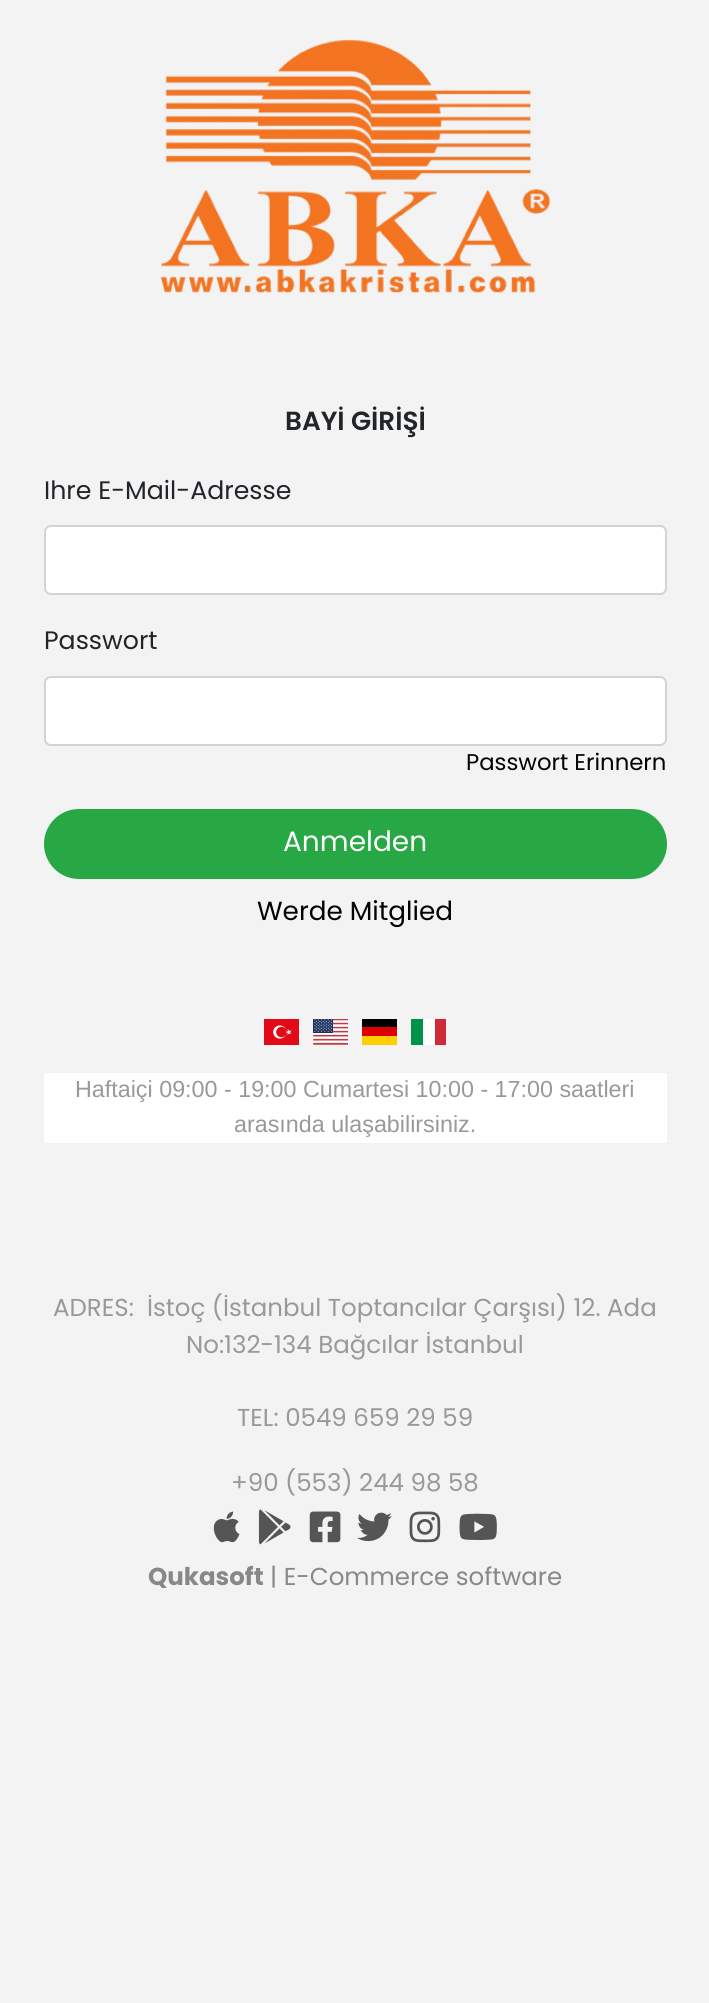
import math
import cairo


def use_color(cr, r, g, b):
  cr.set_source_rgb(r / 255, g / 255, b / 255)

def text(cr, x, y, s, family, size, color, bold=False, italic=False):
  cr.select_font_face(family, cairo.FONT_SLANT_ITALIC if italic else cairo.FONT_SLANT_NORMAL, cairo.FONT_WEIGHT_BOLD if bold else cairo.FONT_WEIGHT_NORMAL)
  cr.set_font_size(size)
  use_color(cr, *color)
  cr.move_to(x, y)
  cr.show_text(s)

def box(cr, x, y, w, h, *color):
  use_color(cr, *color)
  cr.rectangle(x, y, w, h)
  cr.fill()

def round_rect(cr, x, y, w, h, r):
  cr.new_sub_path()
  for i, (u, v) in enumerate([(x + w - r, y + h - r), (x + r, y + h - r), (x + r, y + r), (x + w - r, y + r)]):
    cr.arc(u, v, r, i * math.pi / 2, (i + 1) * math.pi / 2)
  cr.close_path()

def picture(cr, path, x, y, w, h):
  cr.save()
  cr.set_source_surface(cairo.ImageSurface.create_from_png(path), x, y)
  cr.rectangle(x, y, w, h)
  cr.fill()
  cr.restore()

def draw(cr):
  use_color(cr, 243, 243, 243)
  cr.paint()
  picture(cr, "img_01.png", 161, 40, 389, 253)
  use_color(cr, 255, 255, 255)
  round_rect(cr, 45, 526, 621, 68, 6)
  cr.fill_preserve()
  use_color(cr, 206, 212, 218)
  cr.stroke()
  use_color(cr, 255, 255, 255)
  round_rect(cr, 45, 677, 621, 68, 6)
  cr.fill_preserve()
  use_color(cr, 206, 212, 218)
  cr.stroke()
  use_color(cr, 40, 167, 69)
  round_rect(cr, 45, 810, 621, 68, 34)
  cr.fill_preserve()
  cr.stroke()
  picture(cr, "img_02.png", 264, 1019, 35, 26)
  picture(cr, "img_03.png", 313, 1019, 35, 26)
  box(cr, 362, 1036, 35, 9, 255, 206, 0)
  box(cr, 362, 1019, 35, 8, 0, 0, 0)
  box(cr, 362, 1027, 35, 9, 221, 0, 0)
  box(cr, 423, 1019, 12, 26, 255, 255, 255)
  box(cr, 411, 1019, 12, 26, 0, 146, 70)
  box(cr, 435, 1019, 11, 26, 206, 43, 55)
  box(cr, 44, 1073, 623, 70, 255, 255, 255)
  picture(cr, "img_04.png", 213, 1511, 27, 32)
  picture(cr, "img_05.png", 258, 1509, 33, 36)
  picture(cr, "img_06.png", 309, 1511, 32, 32)
  picture(cr, "img_07.png", 357, 1512, 35, 30)
  picture(cr, "img_08.png", 409, 1511, 32, 32)
  picture(cr, "img_09.png", 459, 1513, 38, 27)
  text(cr, 285, 430, "BAYİ GİRİŞİ", "Poppins SemiBold", 26.25, (33, 37, 41))
  text(cr, 44, 499, "Ihre E-Mail-Adresse", "Poppins", 25.25, (33, 37, 41))
  text(cr, 44, 649, "Passwort", "Poppins", 25.25, (33, 37, 41))
  text(cr, 466, 770, "Passwort Erinnern", "Poppins", 22.75, (2, 2, 2))
  text(cr, 283, 851, "Anmelden", "Poppins", 28, (255, 255, 255))
  text(cr, 257, 920, "Werde Mitglied", "Poppins", 26.25, (2, 2, 2))
  text(cr, 75, 1097, "Haftaiçi 09:00 - 19:00 Cumartesi 10:00 - 17:00 saatleri", "Liberation Sans", 23.3, (153, 153, 153))
  text(cr, 234, 1132, "arasında ulaşabilirsiniz.", "Liberation Sans", 23.3, (153, 153, 153))
  text(cr, 53, 1316, "ADRES:  İstoç (İstanbul Toptancılar Çarşısı) 12. Ada", "Poppins", 24.5, (153, 153, 153))
  text(cr, 186, 1353, "No:132-134 Bağcılar İstanbul", "Poppins", 24.5, (153, 153, 153))
  text(cr, 237, 1426, "TEL: 0549 659 29 59", "Poppins", 24.5, (153, 153, 153))
  text(cr, 231, 1491, "+90 (553) 244 98 58", "Poppins", 24.5, (153, 153, 153))
  text(cr, 148, 1585, "Qukasoft", "Poppins", 24.5, (136, 136, 136), bold=True)
  text(cr, 270, 1585, "| E-Commerce software", "Poppins", 24.5, (136, 136, 136))


surface = cairo.ImageSurface(cairo.FORMAT_RGB24, 709, 2003)
cr = cairo.Context(surface)
options = cairo.FontOptions()
options.set_hint_metrics(cairo.HINT_METRICS_OFF)
options.set_hint_style(cairo.HINT_STYLE_NONE)
cr.set_font_options(options)
cr.set_miter_limit(4)
draw(cr)
surface.write_to_png("out.png")
